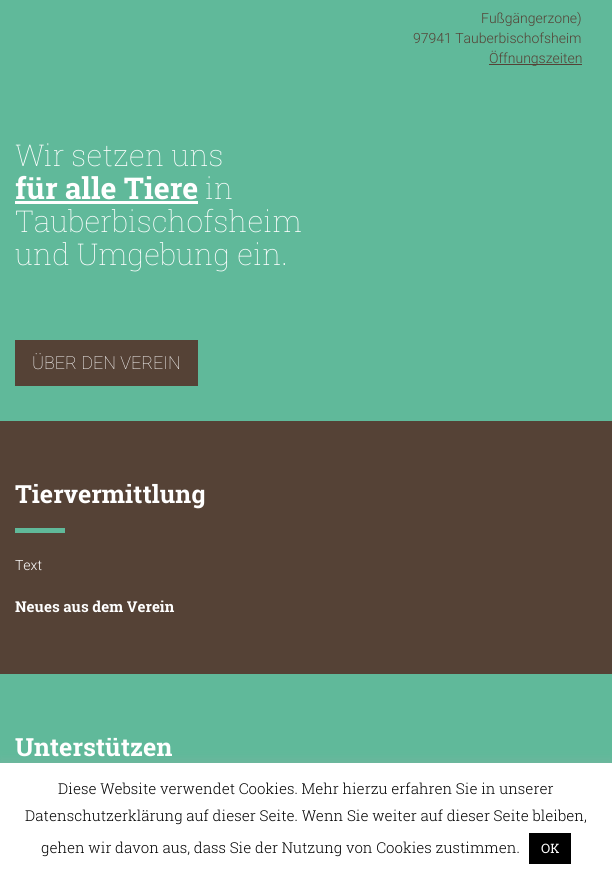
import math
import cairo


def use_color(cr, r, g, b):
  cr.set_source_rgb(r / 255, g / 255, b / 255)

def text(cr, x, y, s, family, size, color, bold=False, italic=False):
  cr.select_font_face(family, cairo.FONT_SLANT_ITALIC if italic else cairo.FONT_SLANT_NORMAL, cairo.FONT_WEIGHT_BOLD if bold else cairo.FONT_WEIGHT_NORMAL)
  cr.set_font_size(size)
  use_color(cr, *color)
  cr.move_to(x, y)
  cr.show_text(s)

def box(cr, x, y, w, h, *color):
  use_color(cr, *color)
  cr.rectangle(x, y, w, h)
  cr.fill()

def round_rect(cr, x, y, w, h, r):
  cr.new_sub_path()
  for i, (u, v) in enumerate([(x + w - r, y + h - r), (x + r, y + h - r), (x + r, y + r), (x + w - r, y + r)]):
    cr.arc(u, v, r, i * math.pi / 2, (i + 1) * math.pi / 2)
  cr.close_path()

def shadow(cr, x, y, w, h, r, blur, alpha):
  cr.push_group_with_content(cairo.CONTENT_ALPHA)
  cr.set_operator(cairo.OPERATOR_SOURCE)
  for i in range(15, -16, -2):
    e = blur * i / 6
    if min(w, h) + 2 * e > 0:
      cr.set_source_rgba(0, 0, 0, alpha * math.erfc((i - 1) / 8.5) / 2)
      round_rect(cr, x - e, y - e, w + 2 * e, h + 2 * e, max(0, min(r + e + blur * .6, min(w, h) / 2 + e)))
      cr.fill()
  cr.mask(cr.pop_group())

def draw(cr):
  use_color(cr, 85, 66, 54)
  cr.paint()
  box(cr, 0, 0, 612, 421, 96, 185, 154)
  box(cr, 489, 64, 93, 1, 85, 66, 54)
  box(cr, 15, 201, 183, 3, 255, 255, 255)
  box(cr, 15, 340, 183, 46, 85, 66, 54)
  box(cr, 15, 528, 50, 5, 96, 185, 154)
  box(cr, 0, 674, 612, 89, 96, 185, 154)
  use_color(cr, 172, 171, 171)
  shadow(cr, 0, 762, 612, 113, 0, 5, 0.3)
  box(cr, 0, 763, 612, 113, 255, 255, 255)
  box(cr, 529, 833, 42, 31, 0, 0, 0)
  text(cr, 481, 23, "Fußgängerzone)", "Roboto Light", 14, (85, 66, 54))
  text(cr, 413, 43, "97941 Tauberbischofsheim", "Roboto Light", 14, (85, 66, 54))
  text(cr, 489, 63, "Öffnungszeiten", "Roboto Light", 14, (85, 66, 54))
  text(cr, 15, 166, "Wir setzen uns", "Roboto Slab Thin", 30, (255, 255, 255))
  text(cr, 15, 199, "für alle Tiere", "Roboto Slab", 30, (255, 255, 255), bold=True)
  text(cr, 205, 199, "in", "Roboto Slab Thin", 30, (255, 255, 255))
  text(cr, 15, 232, "Tauberbischofsheim", "Roboto Slab Thin", 30, (255, 255, 255))
  text(cr, 15, 265, "und Umgebung ein.", "Roboto Slab Thin", 30, (255, 255, 255))
  text(cr, 32, 369, "ÜBER DEN VEREIN", "Roboto Thin", 18, (255, 255, 255))
  text(cr, 15, 503, "Tiervermittlung", "Roboto Slab", 25, (255, 255, 255), bold=True)
  text(cr, 15, 570, "Text", "Roboto Light", 14, (255, 255, 255))
  text(cr, 15, 612, "Neues aus dem Verein", "Roboto Slab", 15, (255, 255, 255), bold=True)
  text(cr, 15, 756, "Unterstützen", "Roboto Slab", 25, (255, 255, 255), bold=True)
  text(cr, 58, 794, "Diese Website verwendet Cookies. Mehr hierzu erfahren Sie in unserer", "Roboto Slab Light", 15, (0, 0, 0))
  text(cr, 25, 821, "Datenschutzerklärung auf dieser Seite. Wenn Sie weiter auf dieser Seite bleiben,", "Roboto Slab Light", 15, (0, 0, 0))
  text(cr, 41, 853, "gehen wir davon aus, dass Sie der Nutzung von Cookies zustimmen.", "Roboto Slab Light", 15, (0, 0, 0))
  text(cr, 541, 853, "OK", "Roboto Slab", 13, (255, 255, 255))


surface = cairo.ImageSurface(cairo.FORMAT_RGB24, 612, 876)
cr = cairo.Context(surface)
options = cairo.FontOptions()
options.set_hint_metrics(cairo.HINT_METRICS_OFF)
options.set_hint_style(cairo.HINT_STYLE_NONE)
cr.set_font_options(options)
cr.set_miter_limit(4)
draw(cr)
surface.write_to_png("out.png")
